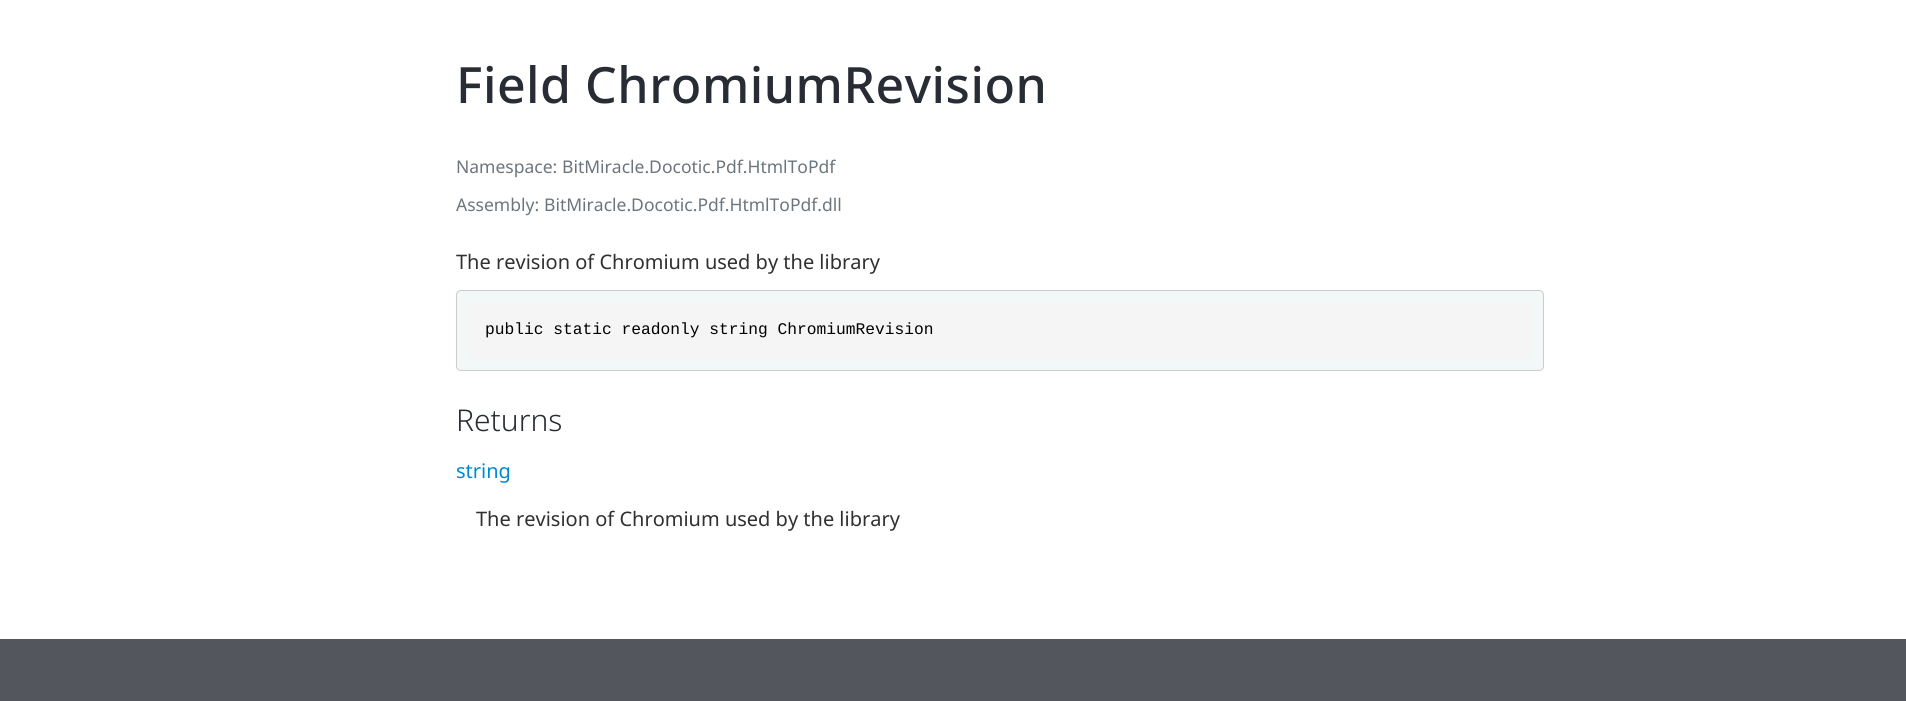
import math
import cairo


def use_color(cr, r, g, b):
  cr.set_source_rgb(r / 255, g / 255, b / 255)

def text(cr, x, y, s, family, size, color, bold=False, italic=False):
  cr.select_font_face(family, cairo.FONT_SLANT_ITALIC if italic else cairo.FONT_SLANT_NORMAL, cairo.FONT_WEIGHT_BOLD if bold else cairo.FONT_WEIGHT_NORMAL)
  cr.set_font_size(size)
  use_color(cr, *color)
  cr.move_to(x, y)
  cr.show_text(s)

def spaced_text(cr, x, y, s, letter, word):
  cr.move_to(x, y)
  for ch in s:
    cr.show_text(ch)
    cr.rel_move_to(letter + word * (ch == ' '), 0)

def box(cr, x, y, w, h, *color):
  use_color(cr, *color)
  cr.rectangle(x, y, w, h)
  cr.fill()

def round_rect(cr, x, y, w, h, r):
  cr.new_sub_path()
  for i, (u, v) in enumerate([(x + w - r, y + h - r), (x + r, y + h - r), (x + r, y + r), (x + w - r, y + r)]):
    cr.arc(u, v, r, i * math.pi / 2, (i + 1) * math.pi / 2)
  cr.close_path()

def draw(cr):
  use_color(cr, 255, 255, 255)
  cr.paint()
  use_color(cr, 242, 247, 247)
  round_rect(cr, 456.5, 290.5, 1087, 80, 4.5)
  cr.fill_preserve()
  use_color(cr, 204, 204, 204)
  cr.set_line_width(1)
  cr.stroke()
  box(cr, 469, 303, 1062, 56, 245, 245, 245)
  box(cr, 0, 639, 1906, 62, 83, 87, 93)
  cr.select_font_face("Noto Sans Medium")
  cr.set_font_size(50)
  use_color(cr, 40, 45, 53)
  spaced_text(cr, 456, 103, "Field ChromiumRevision", 0.5, 0)
  text(cr, 456, 173, "Namespace:", "Noto Sans", 17.5, (108, 117, 125))
  text(cr, 562, 173, "BitMiracle.Docotic.Pdf.HtmlToPdf", "Noto Sans", 17.5, (108, 117, 125))
  text(cr, 456, 211, "Assembly:", "Noto Sans", 17.5, (108, 117, 125))
  text(cr, 544, 211, "BitMiracle.Docotic.Pdf.HtmlToPdf.dll", "Noto Sans", 17.5, (108, 117, 125))
  text(cr, 456, 269, "The revision of Chromium used by the library", "Noto Sans", 20, (48, 48, 48))
  text(cr, 485, 334, "public static readonly string ChromiumRevision", "Liberation Mono", 16.25, (0, 0, 0))
  text(cr, 456, 431, "Returns", "Noto Sans Light", 30, (40, 45, 53))
  text(cr, 456, 478, "string", "Noto Sans", 20, (0, 137, 208))
  text(cr, 476, 526, "The revision of Chromium used by the library", "Noto Sans", 20, (48, 48, 48))


surface = cairo.ImageSurface(cairo.FORMAT_RGB24, 1906, 701)
cr = cairo.Context(surface)
options = cairo.FontOptions()
options.set_hint_metrics(cairo.HINT_METRICS_OFF)
options.set_hint_style(cairo.HINT_STYLE_NONE)
cr.set_font_options(options)
cr.set_miter_limit(4)
draw(cr)
surface.write_to_png("out.png")
